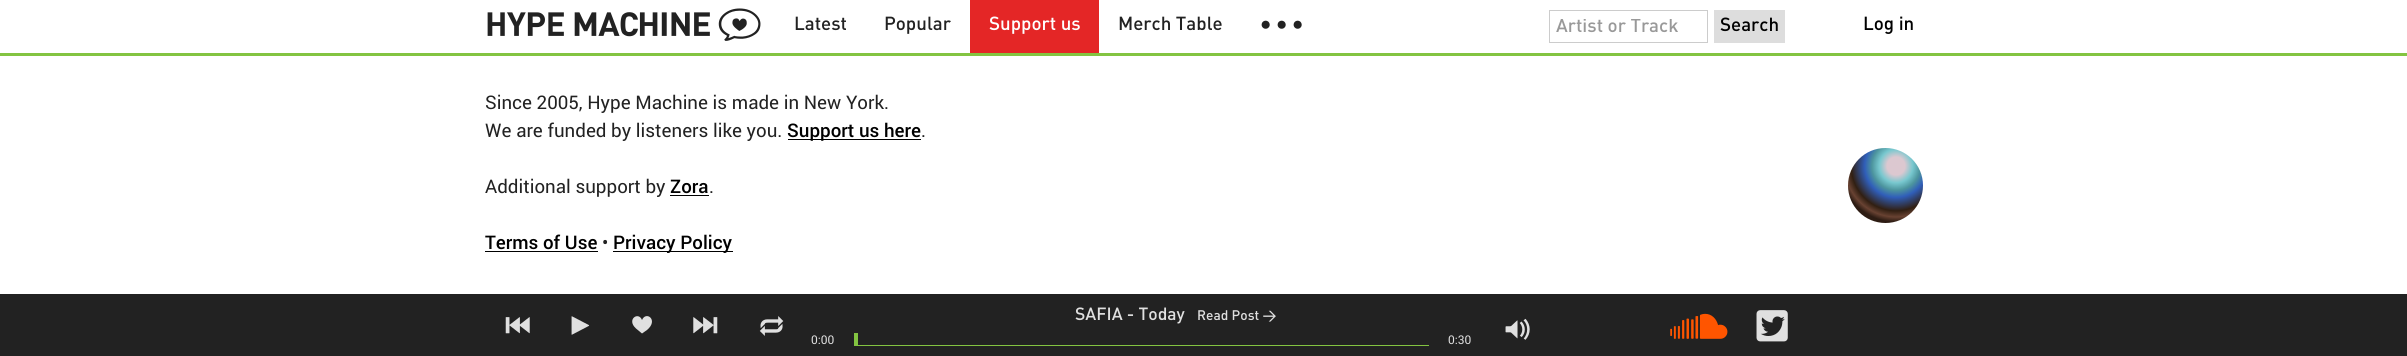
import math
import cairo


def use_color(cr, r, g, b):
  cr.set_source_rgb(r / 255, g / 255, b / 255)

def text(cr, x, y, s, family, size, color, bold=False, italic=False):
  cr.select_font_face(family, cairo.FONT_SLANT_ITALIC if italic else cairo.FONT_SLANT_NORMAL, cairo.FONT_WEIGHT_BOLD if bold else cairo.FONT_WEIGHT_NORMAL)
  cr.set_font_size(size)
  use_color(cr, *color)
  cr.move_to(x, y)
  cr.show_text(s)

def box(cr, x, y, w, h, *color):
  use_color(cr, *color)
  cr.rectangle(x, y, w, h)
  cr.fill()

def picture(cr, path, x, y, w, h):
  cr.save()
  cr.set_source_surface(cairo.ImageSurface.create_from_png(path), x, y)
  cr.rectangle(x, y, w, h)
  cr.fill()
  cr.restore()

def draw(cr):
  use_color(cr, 255, 255, 255)
  cr.paint()
  box(cr, 0, 53, 2407, 3, 131, 196, 65)
  box(cr, 970, 0, 129, 53, 228, 38, 38)
  cr.rectangle(1549.5, 10.5, 158, 32)
  use_color(cr, 204, 204, 204)
  cr.set_line_width(1)
  cr.stroke()
  box(cr, 1714, 10, 71, 33, 221, 221, 221)
  box(cr, 788, 139, 133, 1, 0, 0, 0)
  box(cr, 670, 195, 39, 1, 0, 0, 0)
  gradient = cairo.RadialGradient(1896, 166, 0, 1896, 166, 56)
  gradient.add_color_stop_rgba(0.16, 0.863, 0.784, 0.816, 1)
  gradient.add_color_stop_rgba(0.3, 0.471, 0.784, 0.812, 1)
  gradient.add_color_stop_rgba(0.43, 0.302, 0.584, 0.62, 1)
  gradient.add_color_stop_rgba(0.56, 0.188, 0.369, 0.725, 1)
  gradient.add_color_stop_rgba(0.8, 0.192, 0.122, 0.071, 1)
  gradient.add_color_stop_rgba(0.91, 0.408, 0.259, 0.196, 1)
  gradient.add_color_stop_rgba(1, 0.176, 0.11, 0.075, 1)
  cr.set_source(gradient)
  cr.arc(1885.5, 185.5, 37.5, 0, 2 * math.pi)
  cr.fill()
  box(cr, 485, 251, 113, 1, 0, 0, 0)
  box(cr, 613, 251, 120, 1, 0, 0, 0)
  box(cr, 0, 294, 2407, 62, 34, 34, 34)
  picture(cr, "img_01.png", 505, 317, 25, 17)
  picture(cr, "img_02.png", 571, 316, 19, 19)
  use_color(cr, 224, 224, 224)
  cr.new_path()
  cr.move_to(642, 320)
  cr.curve_to(646, 310.5, 659, 320, 647, 330)
  cr.line_to(642, 333.5)
  cr.line_to(636, 328.5)
  cr.curve_to(626, 319.5, 638.5, 311, 642, 320)
  cr.close_path()
  cr.fill()
  picture(cr, "img_03.png", 693, 317, 25, 17)
  picture(cr, "img_04.png", 759, 316, 25, 20)
  picture(cr, "img_05.png", 1756, 310, 32, 32)
  box(cr, 854, 345, 575, 1, 131, 196, 65)
  box(cr, 854, 333, 4, 12, 131, 196, 65)
  picture(cr, "img_06.png", 1505, 318, 25, 22)
  text(cr, 485, 35, "1", "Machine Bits", 47.5, (34, 34, 34))
  text(cr, 794, 30, "Latest", "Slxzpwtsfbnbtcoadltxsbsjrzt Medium", 18.75, (34, 34, 34))
  text(cr, 884, 30, "Popular", "Slxzpwtsfbnbtcoadltxsbsjrzt Medium", 18.75, (34, 34, 34))
  text(cr, 989, 30, "Support us", "Slxzpwtsfbnbtcoadltxsbsjrzt Medium", 18.75, (255, 255, 255))
  text(cr, 1118, 30, "Merch Table", "Slxzpwtsfbnbtcoadltxsbsjrzt Medium", 18.75, (34, 34, 34))
  text(cr, 1260, 30, "● ● ●", "Liberation Serif", 18.75, (34, 34, 34), bold=True)
  cr.save()
  cr.rectangle(1556, 19, 150, 19)
  cr.clip()
  text(cr, 1556, 32, "Artist or Track", "Slxzpwtsfbnbtcoadltxsbsjrzt Medium", 18.75, (153, 153, 153))
  cr.restore()
  text(cr, 1720, 31, "Search", "Slxzpwtsfbnbtcoadltxsbsjrzt Medium", 18.75, (0, 0, 0))
  text(cr, 1863, 30, "Log in", "Slxzpwtsfbnbtcoadltxsbsjrzt Medium", 18.75, (0, 0, 0))
  text(cr, 485, 109, "Since 2005, Hype Machine is made in New York.", "Roboto", 18.75, (34, 34, 34))
  text(cr, 485, 137, "We are funded by listeners like you.", "Roboto", 18.75, (34, 34, 34))
  text(cr, 787, 137, "Support us here", "Roboto Medium", 18.75, (0, 0, 0))
  text(cr, 921, 137, ".", "Roboto", 18.75, (34, 34, 34))
  text(cr, 485, 193, "Additional support by", "Roboto", 18.75, (34, 34, 34))
  text(cr, 670, 193, "Zora", "Roboto Medium", 18.75, (0, 0, 0))
  text(cr, 709, 193, ".", "Roboto", 18.75, (34, 34, 34))
  text(cr, 485, 249, "Terms of Use", "Roboto Medium", 18.75, (0, 0, 0))
  text(cr, 602, 249, "•", "Roboto", 18.75, (34, 34, 34))
  text(cr, 613, 249, "Privacy Policy", "Roboto Medium", 18.75, (0, 0, 0))
  text(cr, 1075, 320, "SAFIA - Today", "Slxzpwtsfbnbtcoadltxsbsjrzt Medium", 17.5, (224, 224, 224))
  text(cr, 1197, 320, "Read Post →", "Slxzpwtsfbnbtcoadltxsbsjrzt Medium", 13.75, (224, 224, 224))
  text(cr, 1669, 336, "9", "Machine Bits", 25, (255, 85, 0))
  text(cr, 811, 344, "0:00", "Roboto", 12, (224, 224, 224))
  text(cr, 1448, 344, "0:30", "Roboto", 12, (224, 224, 224))


surface = cairo.ImageSurface(cairo.FORMAT_RGB24, 2407, 356)
cr = cairo.Context(surface)
options = cairo.FontOptions()
options.set_hint_metrics(cairo.HINT_METRICS_OFF)
options.set_hint_style(cairo.HINT_STYLE_NONE)
cr.set_font_options(options)
cr.set_miter_limit(4)
draw(cr)
surface.write_to_png("out.png")
